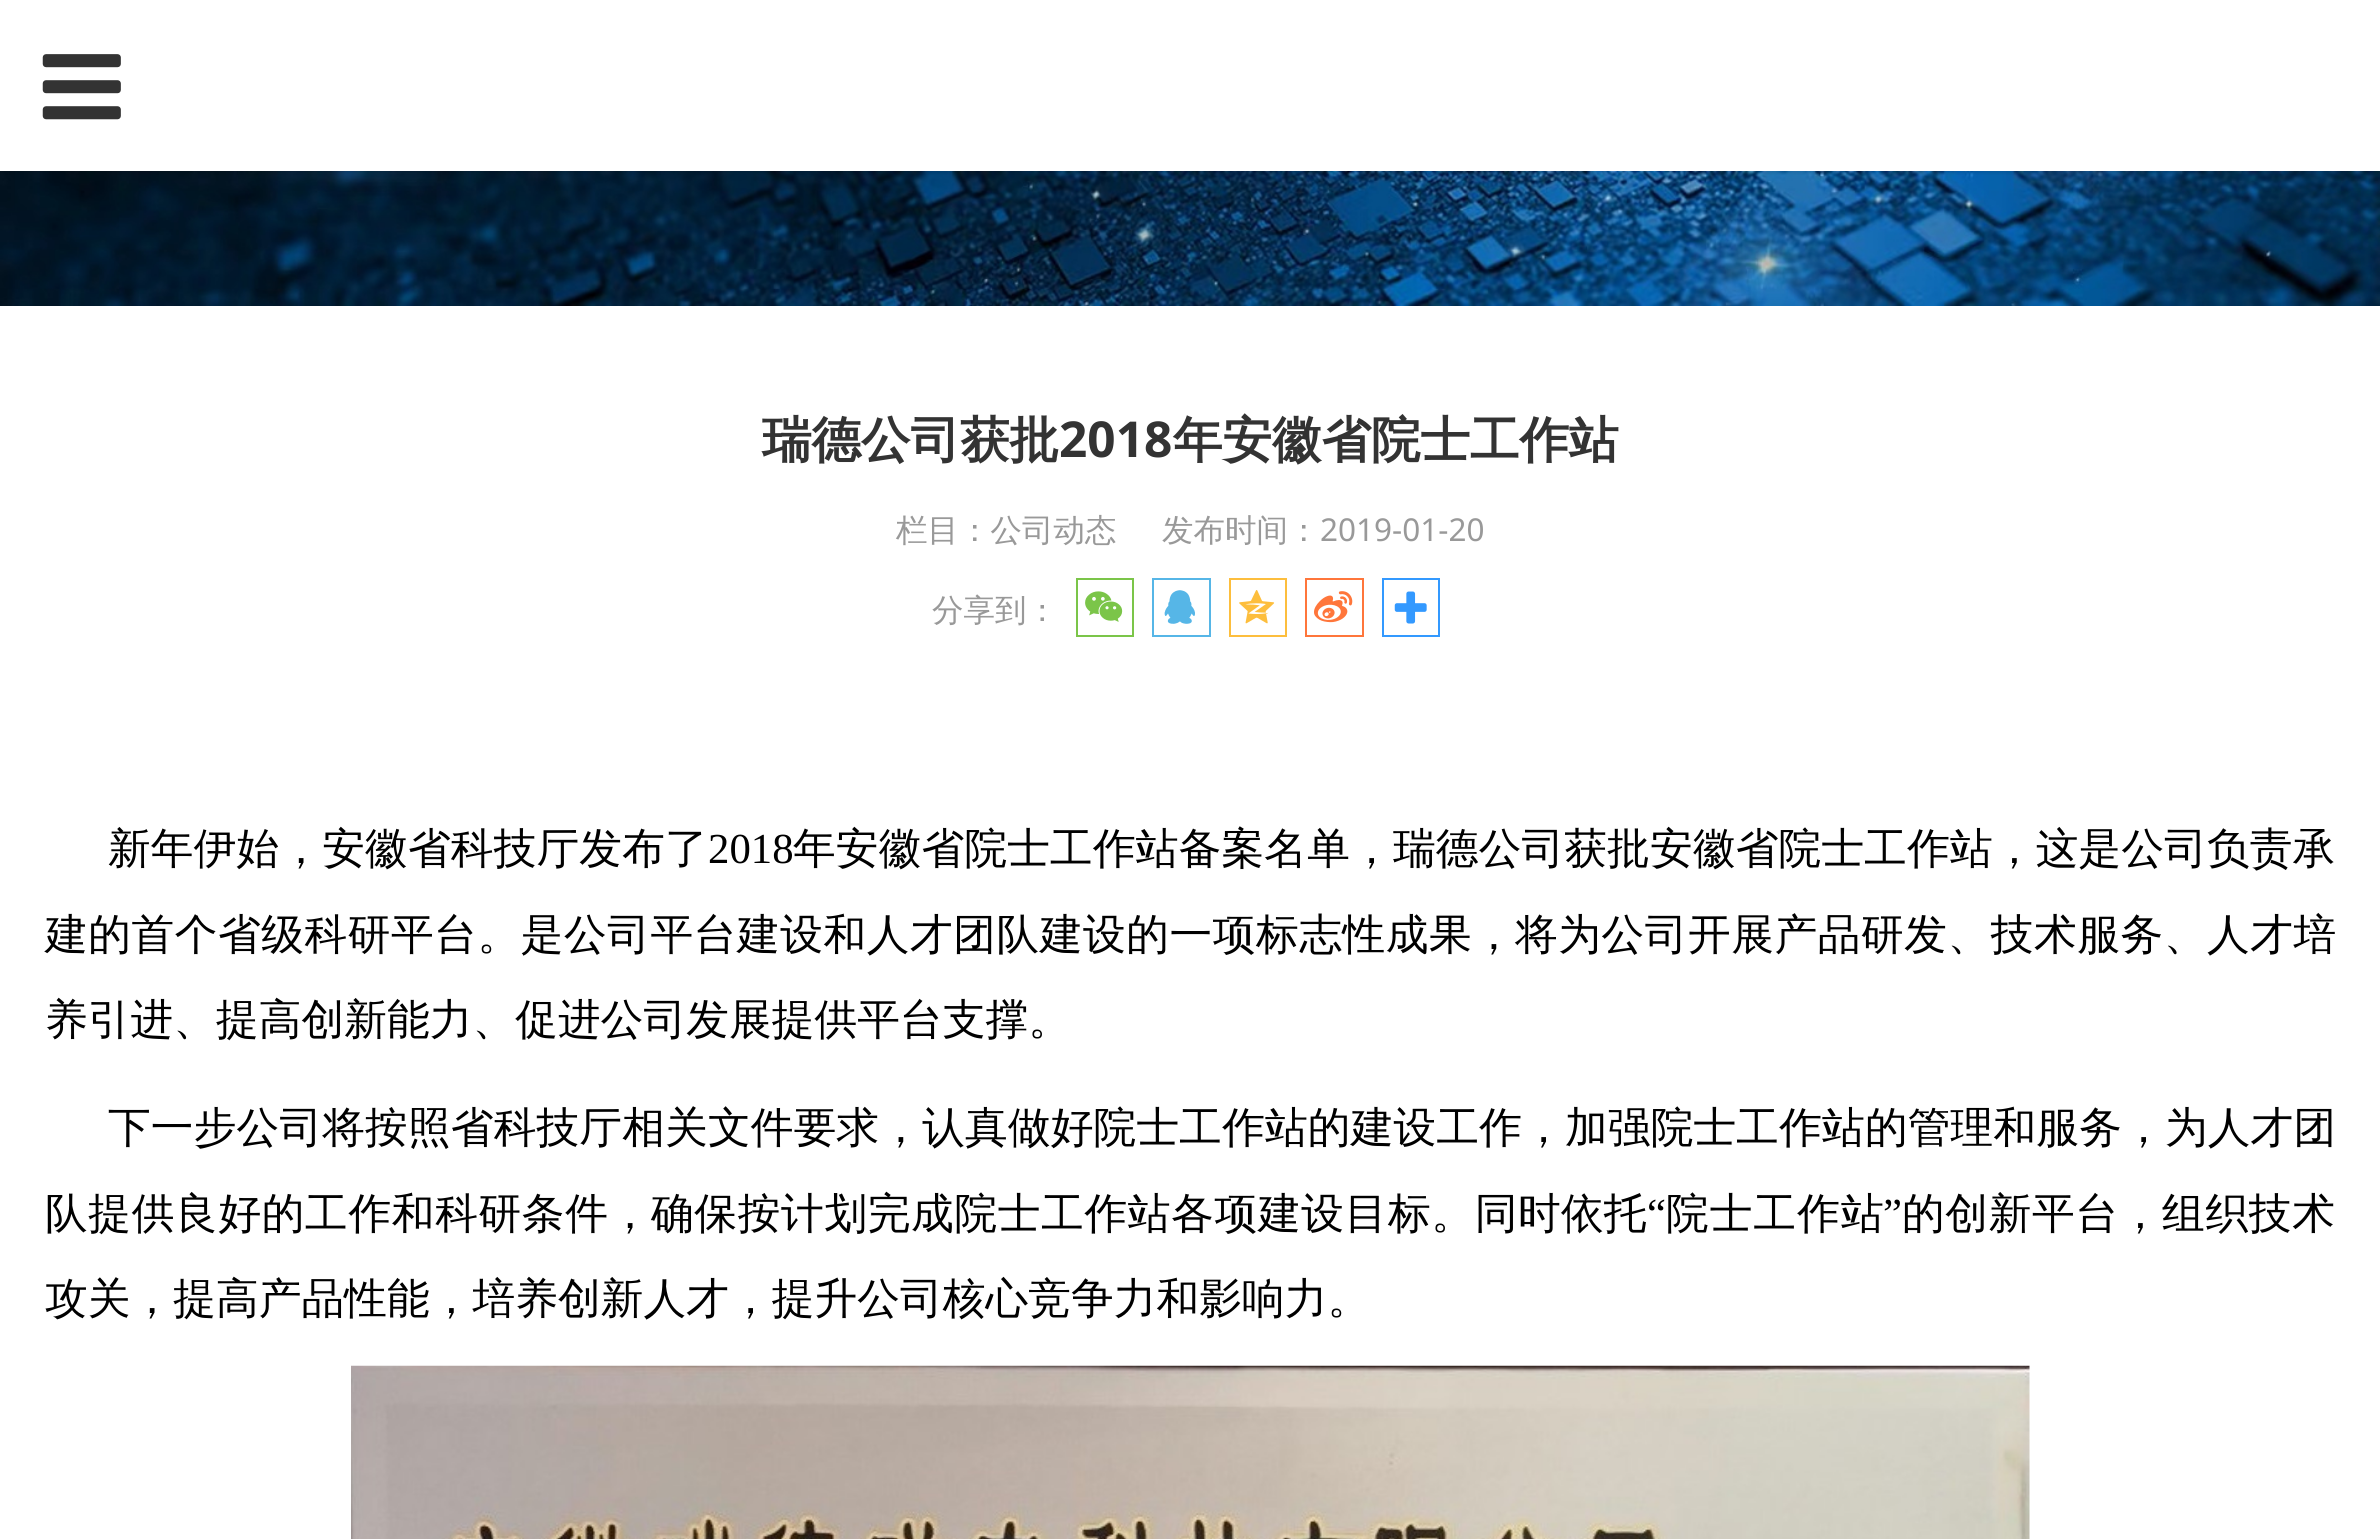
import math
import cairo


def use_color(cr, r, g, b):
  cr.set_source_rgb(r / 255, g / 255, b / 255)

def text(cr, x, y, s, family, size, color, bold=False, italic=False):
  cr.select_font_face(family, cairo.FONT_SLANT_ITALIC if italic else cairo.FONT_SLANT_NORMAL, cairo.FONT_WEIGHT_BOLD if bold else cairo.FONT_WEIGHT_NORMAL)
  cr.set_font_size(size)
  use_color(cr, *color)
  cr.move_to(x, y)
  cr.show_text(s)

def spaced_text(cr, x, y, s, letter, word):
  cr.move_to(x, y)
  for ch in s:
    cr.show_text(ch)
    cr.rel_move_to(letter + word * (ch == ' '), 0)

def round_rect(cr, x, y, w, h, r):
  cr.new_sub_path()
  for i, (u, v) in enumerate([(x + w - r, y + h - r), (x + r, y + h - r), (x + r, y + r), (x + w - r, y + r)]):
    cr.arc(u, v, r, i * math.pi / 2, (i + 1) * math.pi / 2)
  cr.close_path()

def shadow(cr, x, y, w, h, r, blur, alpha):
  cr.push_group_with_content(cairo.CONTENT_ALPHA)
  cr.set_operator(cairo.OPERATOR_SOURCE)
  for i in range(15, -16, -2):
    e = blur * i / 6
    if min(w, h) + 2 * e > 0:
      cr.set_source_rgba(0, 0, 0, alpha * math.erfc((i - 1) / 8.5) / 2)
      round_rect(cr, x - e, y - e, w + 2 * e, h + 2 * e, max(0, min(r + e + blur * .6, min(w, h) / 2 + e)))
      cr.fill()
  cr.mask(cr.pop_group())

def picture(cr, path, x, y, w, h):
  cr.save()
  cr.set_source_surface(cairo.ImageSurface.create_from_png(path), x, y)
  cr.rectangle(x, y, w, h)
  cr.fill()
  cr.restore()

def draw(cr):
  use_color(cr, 255, 255, 255)
  cr.paint()
  picture(cr, "img_02.png", 0, 171, 2380, 135)
  cr.save()
  cr.rectangle(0, 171, 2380, 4)
  cr.clip()
  use_color(cr, 0, 0, 0)
  shadow(cr, 0, 2, 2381, 171, 0, 2, 0.1)
  cr.restore()
  picture(cr, "img_01.png", 42, 54, 79, 66)
  cr.rectangle(1077, 579, 56, 57)
  use_color(cr, 123, 197, 73)
  cr.stroke()
  picture(cr, "img_03.png", 1085, 591, 38, 31)
  cr.rectangle(1153, 579, 57, 57)
  use_color(cr, 86, 182, 231)
  cr.stroke()
  picture(cr, "img_04.png", 1164, 590, 31, 34)
  cr.rectangle(1230, 579, 56, 57)
  use_color(cr, 253, 190, 61)
  cr.stroke()
  picture(cr, "img_05.png", 1239, 590, 36, 34)
  cr.rectangle(1306, 579, 57, 57)
  use_color(cr, 255, 118, 59)
  cr.stroke()
  picture(cr, "img_06.png", 1314, 591, 39, 32)
  cr.rectangle(1383, 579, 56, 57)
  use_color(cr, 51, 153, 255)
  cr.stroke()
  picture(cr, "img_07.png", 1394, 591, 33, 33)
  picture(cr, "img_08.png", 351, 1365, 1679, 174)
  text(cr, 762, 457, "瑞德公司获批", "WenQuanYi Zen Hei", 49.5, (51, 51, 51), bold=True)
  text(cr, 1059, 457, "2018", "Noto Sans", 49.5, (51, 51, 51), bold=True)
  text(cr, 1173, 457, "年安徽省院士工作站", "WenQuanYi Zen Hei", 49.5, (51, 51, 51), bold=True)
  text(cr, 896, 541, "栏目：公司动态", "WenQuanYi Zen Hei Medium", 31.5, (153, 153, 153))
  text(cr, 1162, 541, "发布时间：", "WenQuanYi Zen Hei Medium", 31.5, (153, 153, 153))
  text(cr, 1320, 541, "2019-01-20", "Noto Sans", 31.5, (153, 153, 153))
  text(cr, 932, 621, "分享到：", "WenQuanYi Zen Hei Medium", 31.5, (153, 153, 153))
  cr.set_font_size(42.75)
  use_color(cr, 0, 0, 0)
  spaced_text(cr, 108, 863, "新年伊始，安徽省科技厅发布了", 0.1, 0)
  text(cr, 708, 863, "2018", "Liberation Serif", 42.75, (0, 0, 0))
  cr.select_font_face("WenQuanYi Zen Hei Medium")
  spaced_text(cr, 793, 863, "年安徽省院士工作站备案名单，瑞德公司获批安徽省院士工作站，这是公司", 0.1, 0)
  text(cr, 2207, 863, "负责承", "WenQuanYi Zen Hei Medium", 42.75, (0, 0, 0))
  spaced_text(cr, 45, 949, "建的首个省级科研平台。是公司平台建设和人才团队建设的一项标志性成果，", 0.5, 0)
  spaced_text(cr, 1515, 949, "将为公司开展产品研发、技术服务、人才培", 0.5, 0)
  text(cr, 45, 1034, "养引进、提高创新能力、促进公司发展提供平台支撑。", "WenQuanYi Zen Hei Medium", 42.75, (0, 0, 0))
  spaced_text(cr, 108, 1142, "下一步公司将按照省科技厅相关文件要求，认真做好院士工作站的建设工作，加强院士工作站的管理和服务，为人才团", 0.1, 0)
  spaced_text(cr, 45, 1228, "队提供良好的工作和科研条件，", 0.6, 0)
  spaced_text(cr, 651, 1228, "确保按计划完成院士工作站各项建设目标。同时", 0.6, 0)
  text(cr, 1561, 1228, "依托", "WenQuanYi Zen Hei Medium", 42.75, (0, 0, 0))
  text(cr, 1647, 1228, "“", "Liberation Serif", 42.75, (0, 0, 0))
  cr.select_font_face("WenQuanYi Zen Hei Medium")
  spaced_text(cr, 1666, 1228, "院士工作站", 1, 0)
  text(cr, 1883, 1228, "”", "Liberation Serif", 42.75, (0, 0, 0))
  cr.select_font_face("WenQuanYi Zen Hei Medium")
  spaced_text(cr, 1902, 1228, "的创新平台，组织技术", 0.6, 0)
  text(cr, 45, 1313, "攻关，提高产品性能，培养创新人才，提升公司核心竞争力和影响力。", "WenQuanYi Zen Hei Medium", 42.75, (0, 0, 0))


surface = cairo.ImageSurface(cairo.FORMAT_RGB24, 2380, 1539)
cr = cairo.Context(surface)
options = cairo.FontOptions()
options.set_hint_metrics(cairo.HINT_METRICS_OFF)
options.set_hint_style(cairo.HINT_STYLE_NONE)
cr.set_font_options(options)
cr.set_miter_limit(4)
draw(cr)
surface.write_to_png("out.png")
